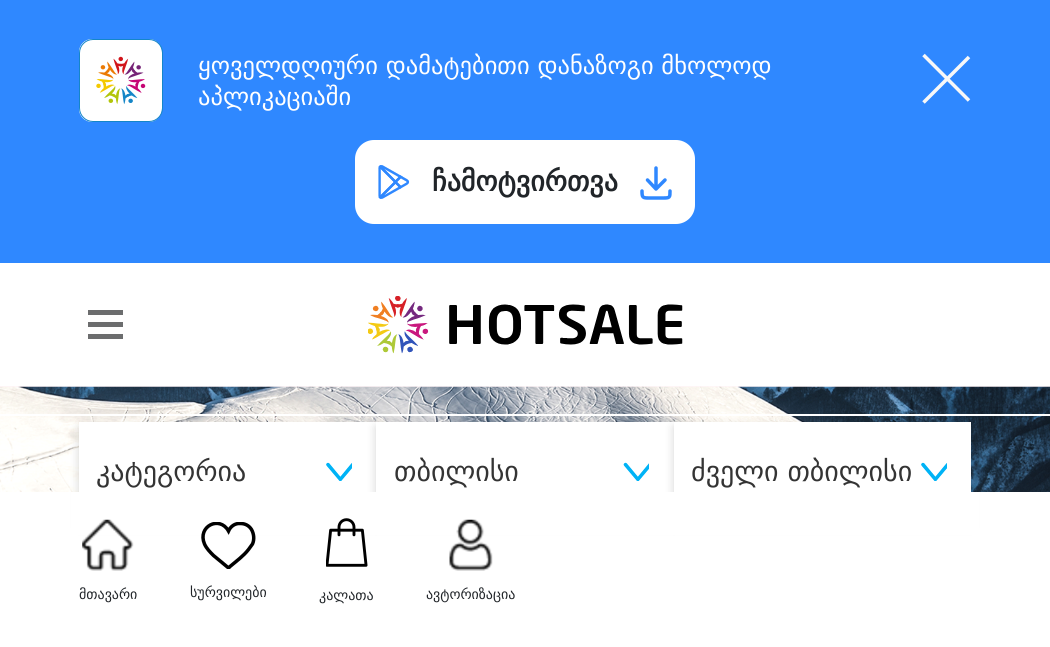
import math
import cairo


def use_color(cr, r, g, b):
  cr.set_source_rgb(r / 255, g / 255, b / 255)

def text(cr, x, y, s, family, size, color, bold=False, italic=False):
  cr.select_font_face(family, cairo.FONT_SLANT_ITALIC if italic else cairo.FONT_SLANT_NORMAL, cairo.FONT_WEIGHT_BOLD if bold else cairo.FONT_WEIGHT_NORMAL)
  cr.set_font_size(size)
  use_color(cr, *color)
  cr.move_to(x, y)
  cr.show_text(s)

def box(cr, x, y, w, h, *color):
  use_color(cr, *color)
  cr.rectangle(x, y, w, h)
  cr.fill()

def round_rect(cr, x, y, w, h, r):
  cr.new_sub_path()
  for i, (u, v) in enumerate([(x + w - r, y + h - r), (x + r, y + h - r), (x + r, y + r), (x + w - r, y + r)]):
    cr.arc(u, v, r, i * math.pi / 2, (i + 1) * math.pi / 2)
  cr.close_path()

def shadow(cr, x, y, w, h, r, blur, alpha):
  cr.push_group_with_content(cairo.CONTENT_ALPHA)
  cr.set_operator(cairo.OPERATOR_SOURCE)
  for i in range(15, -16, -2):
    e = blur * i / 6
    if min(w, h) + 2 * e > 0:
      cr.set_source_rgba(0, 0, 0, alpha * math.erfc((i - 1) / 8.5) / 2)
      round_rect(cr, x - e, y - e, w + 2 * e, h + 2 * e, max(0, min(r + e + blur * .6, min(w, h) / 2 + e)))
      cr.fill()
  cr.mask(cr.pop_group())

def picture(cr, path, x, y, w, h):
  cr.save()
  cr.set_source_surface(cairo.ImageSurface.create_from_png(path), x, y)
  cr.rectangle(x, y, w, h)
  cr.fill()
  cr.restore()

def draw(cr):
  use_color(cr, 255, 255, 255)
  cr.paint()
  box(cr, 0, 0, 1050, 263, 47, 136, 255)
  picture(cr, "img_01.png", 79, 39, 84, 83)
  cr.new_path()
  cr.move_to(923.5, 55)
  cr.line_to(969, 100.5)
  cr.move_to(969, 57)
  cr.line_to(923.5, 102.5)
  use_color(cr, 248, 248, 248)
  cr.set_line_width(3.5)
  cr.stroke()
  use_color(cr, 255, 255, 255)
  round_rect(cr, 355, 140, 340, 84, 19)
  cr.fill()
  picture(cr, "img_02.png", 378, 165, 32, 34)
  cr.new_path()
  cr.move_to(642, 191)
  cr.curve_to(642, 197.5, 642.5, 198, 649, 198)
  cr.line_to(663, 198)
  cr.curve_to(670, 198, 670, 197.5, 670, 191)
  cr.move_to(647.5, 180)
  cr.line_to(656, 189)
  cr.move_to(656, 189)
  cr.line_to(665, 180)
  cr.move_to(656, 189)
  cr.line_to(656, 168)
  use_color(cr, 47, 136, 255)
  cr.set_line_cap(cairo.LINE_CAP_ROUND)
  cr.set_line_join(cairo.LINE_JOIN_ROUND)
  cr.stroke()
  box(cr, 88, 322, 35, 5, 108, 109, 110)
  box(cr, 88, 310, 35, 5, 108, 109, 110)
  box(cr, 88, 334, 35, 5, 108, 109, 110)
  picture(cr, "img_03.png", 368, 296, 315, 58)
  picture(cr, "img_04.png", 0, 386, 1050, 1)
  picture(cr, "img_05.png", 0, 386, 1050, 106)
  use_color(cr, 0, 0, 0)
  shadow(cr, 79, 427, 297, 100, 0, 5, 0.16)
  box(cr, 79, 422, 297, 70, 255, 255, 255)
  picture(cr, "img_06.png", 326, 462, 26, 19)
  use_color(cr, 0, 0, 0)
  shadow(cr, 376, 427, 298, 100, 0, 5, 0.16)
  box(cr, 376, 422, 298, 70, 255, 255, 255)
  picture(cr, "img_07.png", 623, 462, 26, 19)
  use_color(cr, 0, 0, 0)
  shadow(cr, 674, 427, 297, 100, 0, 5, 0.16)
  box(cr, 674, 422, 297, 70, 255, 255, 255)
  picture(cr, "img_06.png", 921, 462, 26, 19)
  box(cr, 71, 492, 908, 43, 255, 255, 255)
  picture(cr, "img_08.png", 82, 519, 52, 52)
  cr.save()
  cr.rectangle(201, 522, 55, 47)
  cr.clip()
  cr.new_path()
  cr.move_to(240.5, 523.5)
  cr.curve_to(235, 523, 230.5, 526.5, 228.5, 531)
  cr.curve_to(219.5, 515, 197, 526.5, 204.5, 544)
  cr.curve_to(206.5, 548.5, 210, 552, 213.5, 555.5)
  cr.line_to(228, 567.5)
  cr.curve_to(229, 568, 229.5, 567, 230, 566.5)
  cr.curve_to(236.5, 561, 243.5, 556, 248.5, 549.5)
  cr.line_to(252.5, 544)
  cr.curve_to(254.5, 539.5, 254, 534, 251.5, 529.5)
  cr.curve_to(249, 525.5, 245, 523.5, 240.5, 523.5)
  cr.close_path()
  use_color(cr, 0, 0, 0)
  cr.set_line_cap(cairo.LINE_CAP_BUTT)
  cr.set_line_join(cairo.LINE_JOIN_MITER)
  cr.stroke()
  cr.restore()
  picture(cr, "img_09.png", 326, 518, 42, 49)
  picture(cr, "img_10.png", 449, 519, 44, 52)
  text(cr, 198, 74, "ყოველდღიური დამატებითი დანაზოგი მხოლოდ", "DejaVu Sans", 24.5, (255, 255, 255))
  text(cr, 198, 105, "აპლიკაციაში", "DejaVu Sans", 24.5, (255, 255, 255))
  text(cr, 432, 191, "ჩამოტვირთვა", "DejaVu Sans", 28, (33, 37, 41), bold=True)
  text(cr, 96, 481, "კატეგორია", "DejaVu Sans", 28, (52, 52, 52))
  text(cr, 394, 481, "თბილისი", "DejaVu Sans", 28, (52, 52, 52))
  text(cr, 691, 481, "ძველი თბილისი", "DejaVu Sans", 28, (52, 52, 52))
  text(cr, 79, 599, "მთავარი", "DejaVu Sans", 14, (33, 37, 41))
  text(cr, 190, 597, "სურვილები", "DejaVu Sans", 14, (33, 37, 41))
  text(cr, 319, 600, "კალათა", "DejaVu Sans", 14, (33, 37, 41))
  text(cr, 426, 599, "ავტორიზაცია", "DejaVu Sans", 14, (33, 37, 41))


surface = cairo.ImageSurface(cairo.FORMAT_RGB24, 1050, 647)
cr = cairo.Context(surface)
options = cairo.FontOptions()
options.set_hint_metrics(cairo.HINT_METRICS_OFF)
options.set_hint_style(cairo.HINT_STYLE_NONE)
cr.set_font_options(options)
cr.set_miter_limit(4)
draw(cr)
surface.write_to_png("out.png")
